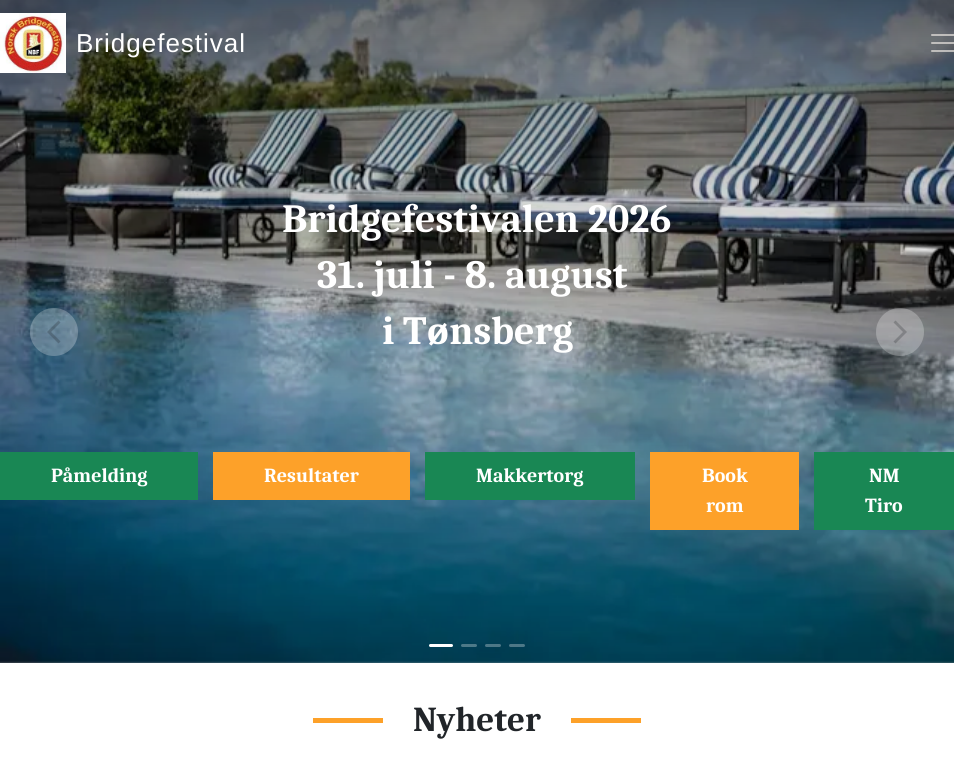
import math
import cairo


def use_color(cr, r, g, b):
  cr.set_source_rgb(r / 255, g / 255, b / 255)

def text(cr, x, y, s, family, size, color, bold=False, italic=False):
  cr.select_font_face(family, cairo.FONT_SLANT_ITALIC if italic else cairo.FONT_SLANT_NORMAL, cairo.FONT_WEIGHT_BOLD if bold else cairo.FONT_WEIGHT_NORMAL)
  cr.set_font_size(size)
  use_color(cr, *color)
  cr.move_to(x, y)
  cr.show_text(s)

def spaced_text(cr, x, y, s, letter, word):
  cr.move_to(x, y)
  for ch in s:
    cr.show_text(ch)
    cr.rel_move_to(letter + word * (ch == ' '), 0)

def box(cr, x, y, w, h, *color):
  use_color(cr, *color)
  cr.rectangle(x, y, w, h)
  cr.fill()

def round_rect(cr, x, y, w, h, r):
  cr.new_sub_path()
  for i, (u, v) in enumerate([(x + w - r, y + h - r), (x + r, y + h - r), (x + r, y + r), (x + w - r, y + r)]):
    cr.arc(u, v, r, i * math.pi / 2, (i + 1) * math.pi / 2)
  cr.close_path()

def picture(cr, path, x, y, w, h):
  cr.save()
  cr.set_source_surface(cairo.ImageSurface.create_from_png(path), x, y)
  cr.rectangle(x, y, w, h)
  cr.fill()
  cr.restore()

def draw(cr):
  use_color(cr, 255, 255, 255)
  cr.paint()
  picture(cr, "img_03.png", 0, 0, 954, 663)
  gradient = cairo.LinearGradient(477, 663, 477, 0)
  gradient.add_color_stop_rgba(0, 0, 0, 0, 0.3)
  gradient.add_color_stop_rgba(0.6, 0, 0, 0, 0)
  gradient.add_color_stop_rgba(1, 0, 0, 0, 0.5)
  cr.set_source(gradient)
  cr.rectangle(0, 0, 954, 663)
  cr.fill()
  picture(cr, "img_01.png", 0, 13, 66, 60)
  picture(cr, "img_02.png", 931, 34, 23, 18)
  cr.set_source_rgba(1, 1, 1, 0.25)
  cr.arc(54, 332, 24, 0, 2 * math.pi)
  cr.fill()
  cr.set_source_rgba(0.129, 0.145, 0.161, 0.25)
  cr.new_path()
  cr.move_to(60.5, 322.5)
  cr.line_to(58.5, 320.5)
  cr.line_to(47, 332)
  cr.line_to(58.5, 343.5)
  cr.line_to(60.5, 341.5)
  cr.line_to(51, 332)
  cr.close_path()
  cr.fill()
  cr.set_source_rgba(1, 1, 1, 0.25)
  cr.arc(900, 332, 24, 0, 2 * math.pi)
  cr.fill()
  cr.set_source_rgba(0.129, 0.145, 0.161, 0.25)
  cr.new_path()
  cr.move_to(893.5, 341.5)
  cr.line_to(895.5, 343.5)
  cr.line_to(907, 332)
  cr.line_to(895.5, 320.5)
  cr.line_to(893.5, 322.5)
  cr.line_to(903, 332)
  cr.close_path()
  cr.fill()
  use_color(cr, 255, 255, 255)
  round_rect(cr, 429, 644, 24, 3, 1.5)
  cr.fill()
  use_color(cr, 77, 121, 136)
  round_rect(cr, 461, 644, 16, 3, 1.5)
  cr.fill()
  cr.set_source_rgba(1, 1, 1, 0.3)
  round_rect(cr, 485, 644, 16, 3, 1.5)
  cr.fill()
  round_rect(cr, 509, 644, 16, 3, 1.5)
  cr.fill()
  box(cr, 0, 452, 198, 48, 25, 135, 84)
  box(cr, 213, 452, 197, 48, 253, 161, 41)
  box(cr, 425, 452, 210, 48, 25, 135, 84)
  box(cr, 650, 452, 149, 78, 253, 161, 41)
  box(cr, 814, 452, 140, 78, 25, 135, 84)
  box(cr, 313, 718, 70, 5, 253, 161, 41)
  box(cr, 571, 718, 70, 5, 253, 161, 41)
  cr.select_font_face("Liberation Sans")
  cr.set_font_size(26)
  use_color(cr, 255, 255, 255)
  spaced_text(cr, 76, 52, "Bridgefestival", 1, 0)
  text(cr, 282, 232, "Bridgefestivalen 2026", "Caladea", 40, (255, 255, 255), bold=True)
  text(cr, 317, 288, "31. juli - 8. august", "Caladea", 40, (255, 255, 255), bold=True)
  text(cr, 382, 344, "i Tønsberg", "Caladea", 40, (255, 255, 255), bold=True)
  text(cr, 51, 482, "Påmelding", "Caladea", 20, (255, 255, 255), bold=True)
  text(cr, 264, 482, "Resultater", "Caladea", 20, (255, 255, 255), bold=True)
  text(cr, 476, 482, "Makkertorg", "Caladea", 20, (255, 255, 255), bold=True)
  text(cr, 702, 482, "Book", "Caladea", 20, (255, 255, 255), bold=True)
  text(cr, 706, 512, "rom", "Caladea", 20, (255, 255, 255), bold=True)
  text(cr, 869, 482, "NM", "Caladea", 20, (255, 255, 255), bold=True)
  text(cr, 865, 512, "Tiro", "Caladea", 20, (255, 255, 255), bold=True)
  text(cr, 413, 731, "Nyheter", "Caladea", 35, (33, 37, 41), bold=True)


surface = cairo.ImageSurface(cairo.FORMAT_RGB24, 954, 780)
cr = cairo.Context(surface)
options = cairo.FontOptions()
options.set_hint_metrics(cairo.HINT_METRICS_OFF)
options.set_hint_style(cairo.HINT_STYLE_NONE)
cr.set_font_options(options)
cr.set_miter_limit(4)
draw(cr)
surface.write_to_png("out.png")
